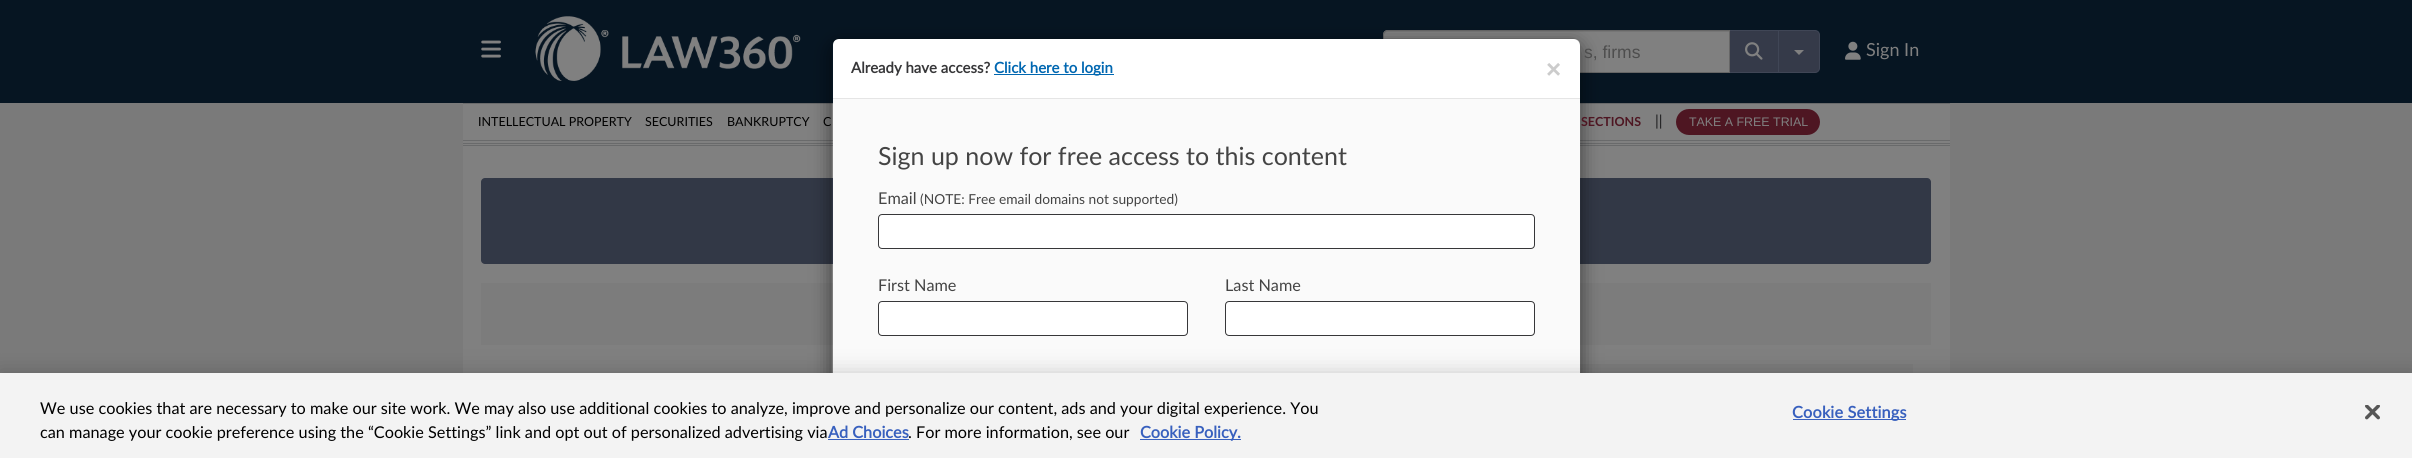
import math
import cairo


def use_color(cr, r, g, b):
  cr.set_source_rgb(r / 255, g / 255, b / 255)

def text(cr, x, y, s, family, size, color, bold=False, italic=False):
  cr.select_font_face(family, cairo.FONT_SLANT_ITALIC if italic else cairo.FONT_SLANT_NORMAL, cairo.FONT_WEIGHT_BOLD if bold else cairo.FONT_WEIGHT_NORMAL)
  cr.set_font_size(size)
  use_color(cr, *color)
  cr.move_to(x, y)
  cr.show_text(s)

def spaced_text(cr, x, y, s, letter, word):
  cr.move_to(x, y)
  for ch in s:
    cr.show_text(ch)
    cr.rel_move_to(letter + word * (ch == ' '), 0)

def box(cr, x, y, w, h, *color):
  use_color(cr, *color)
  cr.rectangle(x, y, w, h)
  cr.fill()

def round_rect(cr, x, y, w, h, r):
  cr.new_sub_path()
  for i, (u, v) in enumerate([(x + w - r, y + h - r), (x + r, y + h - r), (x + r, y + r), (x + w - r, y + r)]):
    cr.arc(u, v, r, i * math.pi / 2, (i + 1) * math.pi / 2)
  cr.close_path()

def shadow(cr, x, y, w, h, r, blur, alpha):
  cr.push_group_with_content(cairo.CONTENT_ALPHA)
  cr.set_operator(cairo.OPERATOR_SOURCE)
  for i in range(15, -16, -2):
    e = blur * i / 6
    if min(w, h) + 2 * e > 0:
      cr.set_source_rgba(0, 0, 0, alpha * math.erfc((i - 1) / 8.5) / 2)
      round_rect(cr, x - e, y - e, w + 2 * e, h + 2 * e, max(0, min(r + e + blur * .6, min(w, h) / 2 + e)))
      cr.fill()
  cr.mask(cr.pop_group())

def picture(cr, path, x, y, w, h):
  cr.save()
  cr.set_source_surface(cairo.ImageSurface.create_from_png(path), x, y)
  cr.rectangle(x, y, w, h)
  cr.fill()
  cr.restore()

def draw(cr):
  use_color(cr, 122, 122, 122)
  cr.paint()
  box(cr, 0, 0, 2412, 103, 6, 21, 34)
  picture(cr, "img_01.png", 481, 40, 20, 18)
  picture(cr, "img_02.png", 535, 16, 266, 65)
  use_color(cr, 53, 58, 73)
  cr.rectangle(1729.5, 30.5, 49, 42)
  cr.fill_preserve()
  use_color(cr, 64, 70, 86)
  cr.set_line_width(1)
  cr.stroke()
  use_color(cr, 128, 128, 128)
  cr.new_path()
  cr.move_to(1388, 30)
  cr.line_to(1730, 30)
  cr.line_to(1730, 73)
  cr.line_to(1388, 73)
  cr.curve_to(1385, 73, 1383, 71, 1383, 68)
  cr.line_to(1383, 35)
  cr.curve_to(1383, 32, 1385, 30, 1388, 30)
  cr.close_path()
  cr.fill()
  use_color(cr, 118, 118, 118)
  cr.new_path()
  cr.move_to(1388, 32)
  cr.line_to(1729, 32)
  cr.line_to(1729, 31)
  cr.line_to(1388, 31)
  cr.curve_to(1385, 31, 1384, 33, 1384, 36)
  cr.curve_to(1384, 34, 1385, 32, 1388, 32)
  cr.close_path()
  cr.fill()
  cr.new_path()
  cr.move_to(1388, 30.5)
  cr.line_to(1729.5, 30.5)
  cr.line_to(1729.5, 72.5)
  cr.line_to(1388, 72.5)
  cr.curve_to(1385.5, 72.5, 1383.5, 70.5, 1383.5, 68)
  cr.line_to(1383.5, 35)
  cr.curve_to(1383.5, 32.5, 1385.5, 30.5, 1388, 30.5)
  cr.close_path()
  use_color(cr, 102, 102, 102)
  cr.stroke()
  picture(cr, "img_03.png", 1745, 42, 18, 18)
  use_color(cr, 53, 58, 73)
  cr.new_path()
  cr.move_to(1778.5, 30.5)
  cr.line_to(1815, 30.5)
  cr.curve_to(1817.5, 30.5, 1819.5, 32.5, 1819.5, 35)
  cr.line_to(1819.5, 68)
  cr.curve_to(1819.5, 70.5, 1817.5, 72.5, 1815, 72.5)
  cr.line_to(1778.5, 72.5)
  cr.close_path()
  cr.fill_preserve()
  use_color(cr, 64, 70, 86)
  cr.stroke()
  use_color(cr, 128, 128, 128)
  cr.new_path()
  cr.move_to(1794, 50)
  cr.line_to(1804, 50)
  cr.line_to(1799, 55)
  cr.close_path()
  cr.fill()
  picture(cr, "img_04.png", 1845, 41, 16, 19)
  box(cr, 463, 104, 1487, 36, 128, 128, 128)
  box(cr, 463, 103, 1487, 1, 105, 106, 107)
  box(cr, 463, 140, 1487, 1, 105, 106, 107)
  box(cr, 463, 141, 1487, 232, 128, 128, 128)
  box(cr, 463, 143, 1487, 1, 105, 106, 107)
  box(cr, 463, 145, 1487, 1, 105, 106, 107)
  use_color(cr, 50, 56, 70)
  round_rect(cr, 481, 178, 1450, 86, 4)
  cr.fill()
  box(cr, 481, 283, 1450, 62, 124, 124, 124)
  box(cr, 1580, 364, 333, 9, 124, 124, 124)
  cr.save()
  cr.set_fill_rule(cairo.FILL_RULE_EVEN_ODD)
  cr.new_path()
  cr.move_to(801, 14)
  cr.line_to(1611, 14)
  cr.line_to(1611, 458)
  cr.line_to(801, 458)
  cr.close_path()
  cr.move_to(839, 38)
  cr.line_to(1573, 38)
  cr.curve_to(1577.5, 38, 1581, 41.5, 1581, 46)
  cr.line_to(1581, 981)
  cr.curve_to(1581, 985.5, 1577.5, 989, 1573, 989)
  cr.line_to(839, 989)
  cr.curve_to(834.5, 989, 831, 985.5, 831, 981)
  cr.line_to(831, 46)
  cr.curve_to(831, 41.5, 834.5, 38, 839, 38)
  cr.close_path()
  cr.clip()
  use_color(cr, 0, 0, 0)
  shadow(cr, 831, 44, 750, 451, 8, 9.5, 0.5)
  cr.restore()
  use_color(cr, 255, 255, 255)
  cr.new_path()
  cr.move_to(839, 39)
  cr.line_to(1574, 39)
  cr.curve_to(1577.5, 39, 1580, 41.5, 1580, 45)
  cr.line_to(1580, 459)
  cr.line_to(833, 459)
  cr.line_to(833, 45)
  cr.curve_to(833, 41.5, 835.5, 39, 839, 39)
  cr.close_path()
  cr.fill()
  use_color(cr, 78, 22, 34)
  round_rect(cr, 1676, 109, 144, 26, 13)
  cr.fill()
  text(cr, 1584, 58, "s, firms", "Liberation Sans", 17.5, (77, 77, 77))
  text(cr, 1866, 56, "Sign In", "Lato", 18, (128, 128, 128))
  text(cr, 478, 126, "INTELLECTUAL PROPERTY", "Lato", 12.5, (0, 0, 0))
  text(cr, 645, 126, "SECURITIES", "Lato", 12.5, (0, 0, 0))
  text(cr, 727, 126, "BANKRUPTCY", "Lato", 12.5, (0, 0, 0))
  text(cr, 823, 126, "C", "Lato", 12.5, (0, 0, 0))
  round_rect(cr, 831.5, 38.5, 749, 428, 7.5)
  cr.set_source_rgba(0, 0, 0, 0.2)
  cr.stroke()
  box(cr, 833, 99, 747, 274, 250, 250, 250)
  use_color(cr, 255, 255, 255)
  round_rect(cr, 1225.5, 301.5, 309, 34, 3.5)
  cr.fill_preserve()
  use_color(cr, 55, 55, 57)
  cr.stroke()
  text(cr, 1225, 291, "Last Name", "Lato", 16.25, (68, 68, 68))
  use_color(cr, 255, 255, 255)
  round_rect(cr, 878.5, 301.5, 309, 34, 3.5)
  cr.fill_preserve()
  use_color(cr, 55, 55, 57)
  cr.stroke()
  text(cr, 878, 291, "First Name", "Lato", 16.25, (68, 68, 68))
  use_color(cr, 255, 255, 255)
  round_rect(cr, 878.5, 214.5, 656, 34, 3.5)
  cr.fill_preserve()
  use_color(cr, 55, 55, 57)
  cr.stroke()
  text(cr, 920, 204, "(NOTE: Free email domains not supported)", "Lato", 13.75, (68, 68, 68))
  text(cr, 878, 204, "Email", "Lato", 16.25, (68, 68, 68))
  text(cr, 878, 165, "Sign up now for free access to this content", "Lato", 25, (68, 68, 68))
  text(cr, 1546, 78, "×", "Liberation Sans", 26, (204, 204, 204), bold=True)
  box(cr, 994, 74, 120, 1, 0, 103, 177)
  text(cr, 994, 73, "Click here to login", "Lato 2", 15, (0, 103, 177), bold=True)
  text(cr, 851, 73, "Already have access?", "Lato 2", 15, (55, 55, 57), bold=True)
  box(cr, 833, 98, 747, 1, 229, 229, 229)
  text(cr, 1581, 126, "SECTIONS", "Lato", 12.5, (78, 22, 34), bold=True)
  text(cr, 1655, 126, "||", "Lato", 15, (28, 28, 29))
  text(cr, 1689, 126, "TAKE A FREE TRIAL", "Liberation Sans", 12.4, (128, 128, 128))
  use_color(cr, 0, 0, 0)
  shadow(cr, 0, 373, 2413, 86, 0, 11, 0.2)
  box(cr, 0, 373, 2412, 85, 243, 243, 243)
  text(cr, 40, 414, "We use cookies that are necessary to make our site work. We may also use additional cookies to analyze, improve and personalize our content, ads and your digital experience. You", "Lato", 16.25, (0, 0, 0))
  text(cr, 40, 438, "can manage your cookie preference using the “Cookie Settings” link and opt out of personalized advertising via", "Lato", 16.25, (0, 0, 0))
  text(cr, 828, 438, "Ad Choices", "Lato 2", 16.25, (56, 96, 190), bold=True)
  box(cr, 828, 439, 81, 1, 56, 96, 190)
  text(cr, 908, 438, ". For more information, see our", "Lato", 16.25, (0, 0, 0))
  box(cr, 1140, 439, 101, 1, 56, 96, 190)
  text(cr, 1140, 438, "Cookie Policy.", "Lato 2", 16.25, (56, 96, 190), bold=True)
  box(cr, 1793, 419, 113, 1, 56, 96, 190)
  spaced_text(cr, 1792, 418, "Cookie Settings", 0.2, 0)
  picture(cr, "img_05.png", 2365, 405, 15, 15)


surface = cairo.ImageSurface(cairo.FORMAT_RGB24, 2412, 458)
cr = cairo.Context(surface)
options = cairo.FontOptions()
options.set_hint_metrics(cairo.HINT_METRICS_OFF)
options.set_hint_style(cairo.HINT_STYLE_NONE)
cr.set_font_options(options)
cr.set_miter_limit(4)
draw(cr)
surface.write_to_png("out.png")
